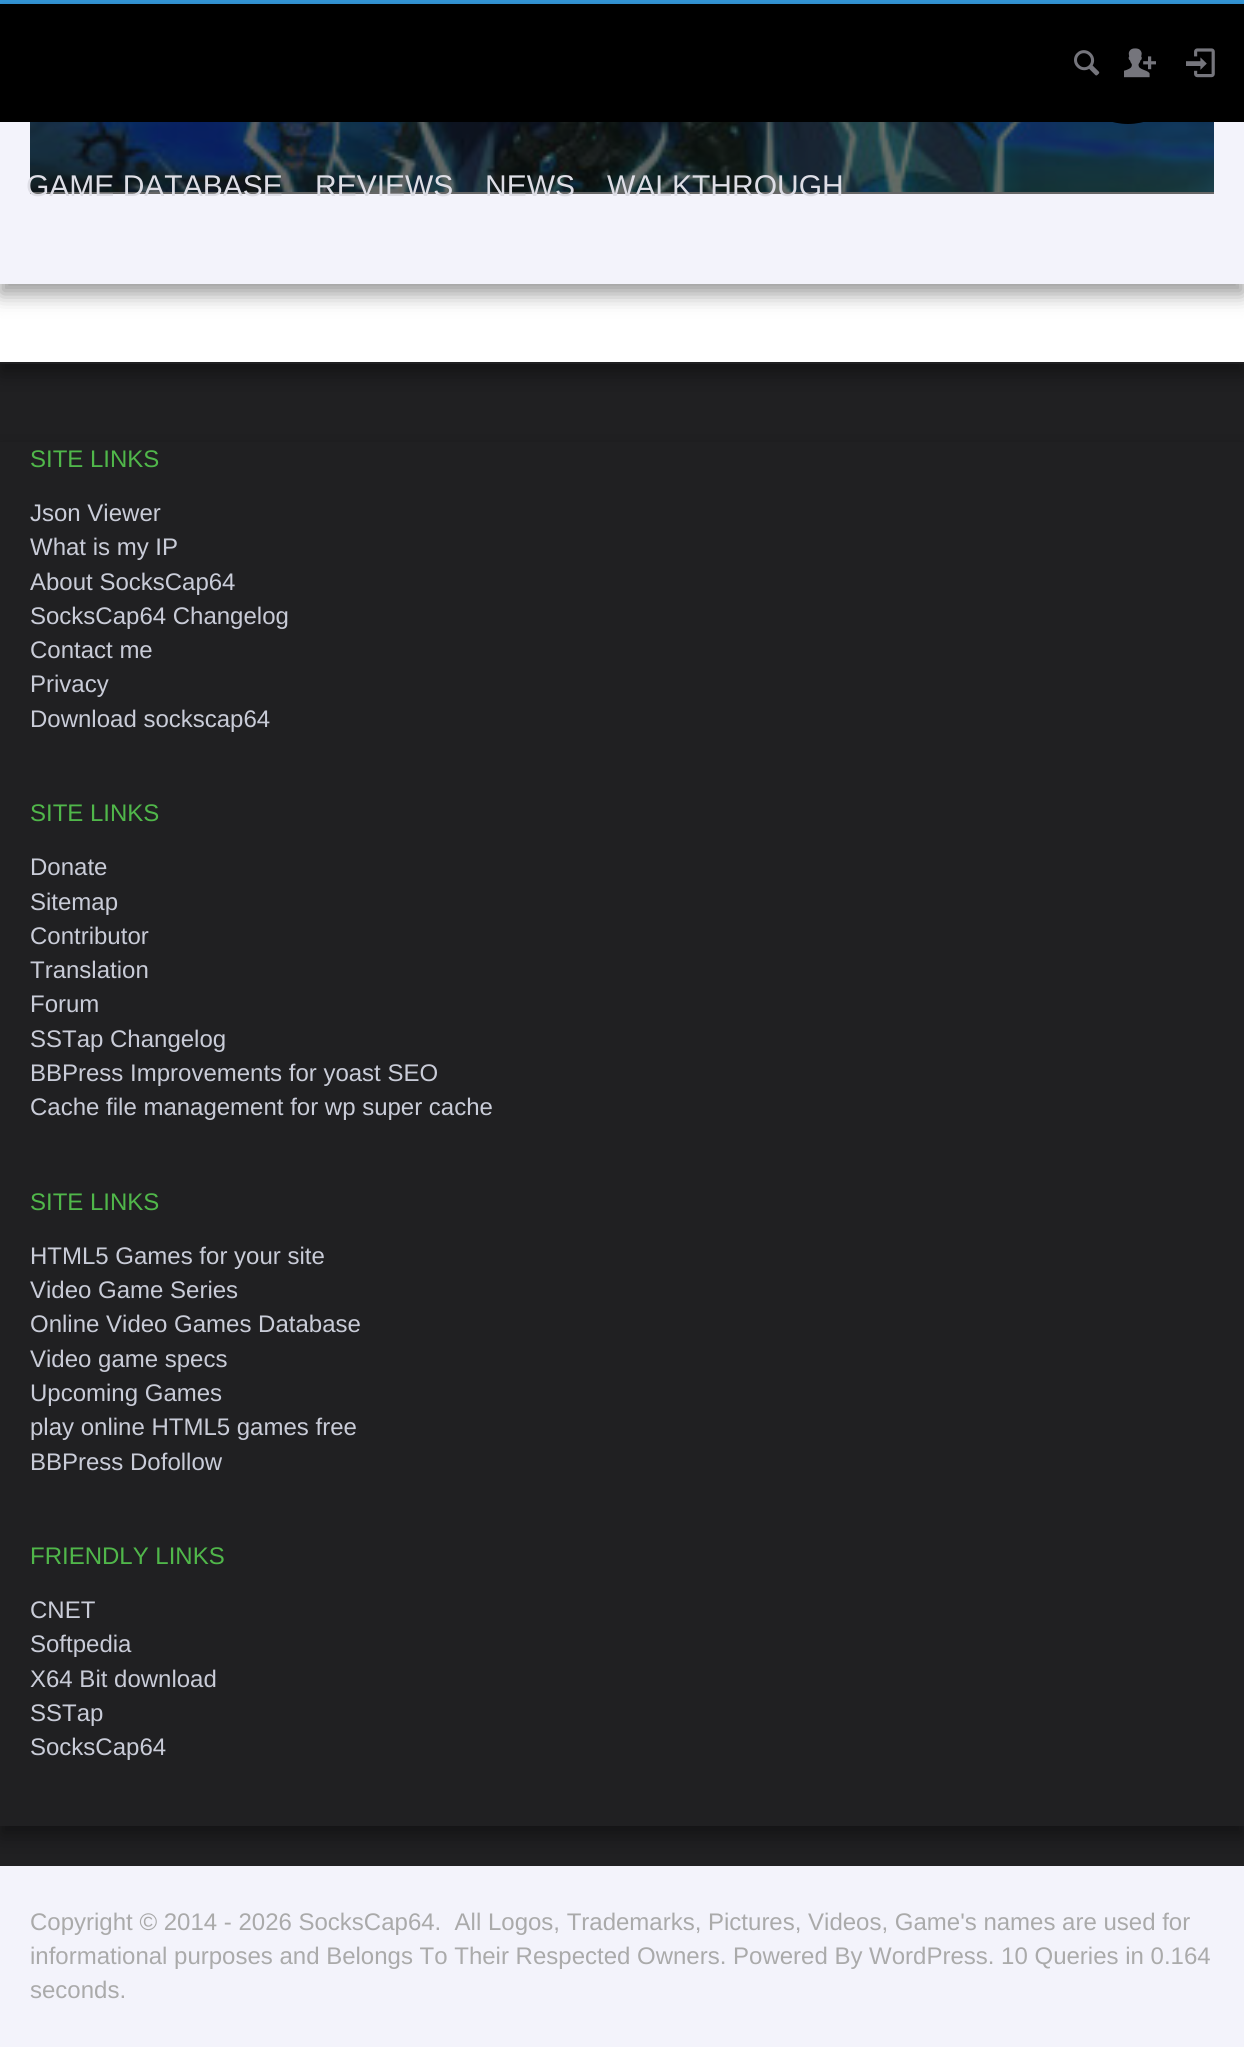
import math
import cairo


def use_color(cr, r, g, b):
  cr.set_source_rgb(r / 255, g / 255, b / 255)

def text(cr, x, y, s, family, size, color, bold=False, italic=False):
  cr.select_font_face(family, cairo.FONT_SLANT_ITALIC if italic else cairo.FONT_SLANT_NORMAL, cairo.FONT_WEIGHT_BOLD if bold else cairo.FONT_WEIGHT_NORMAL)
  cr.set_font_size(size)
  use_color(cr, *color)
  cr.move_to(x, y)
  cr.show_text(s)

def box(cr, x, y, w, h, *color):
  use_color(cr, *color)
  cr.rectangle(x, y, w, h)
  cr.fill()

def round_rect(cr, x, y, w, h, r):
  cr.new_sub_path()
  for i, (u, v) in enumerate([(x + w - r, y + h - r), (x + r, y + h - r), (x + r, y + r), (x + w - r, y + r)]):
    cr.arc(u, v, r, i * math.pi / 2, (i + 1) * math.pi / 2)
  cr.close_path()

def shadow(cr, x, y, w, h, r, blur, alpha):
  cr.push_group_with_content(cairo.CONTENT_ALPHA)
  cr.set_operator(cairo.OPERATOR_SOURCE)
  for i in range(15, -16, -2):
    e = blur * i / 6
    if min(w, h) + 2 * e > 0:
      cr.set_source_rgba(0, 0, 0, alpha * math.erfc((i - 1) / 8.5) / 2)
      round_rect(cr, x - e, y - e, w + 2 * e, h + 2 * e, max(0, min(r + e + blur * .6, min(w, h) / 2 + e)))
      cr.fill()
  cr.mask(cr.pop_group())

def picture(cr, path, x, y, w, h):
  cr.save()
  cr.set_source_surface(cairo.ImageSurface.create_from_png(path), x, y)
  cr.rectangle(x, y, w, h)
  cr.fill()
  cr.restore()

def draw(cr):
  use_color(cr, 255, 255, 255)
  cr.paint()
  use_color(cr, 0, 0, 0)
  shadow(cr, 0, -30, 1244, 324, 0, 10, 0.4)
  box(cr, 0, 122, 1244, 162, 243, 243, 251)
  box(cr, 30, 192, 1184, 2, 102, 102, 102)
  picture(cr, "img_01.png", 30, 122, 1184, 70)
  use_color(cr, 0, 0, 0)
  cr.arc(1128, 64, 60, 0, 2 * math.pi)
  cr.fill()
  box(cr, 0, 4, 1244, 118, 0, 0, 0)
  box(cr, 0, 0, 1244, 4, 52, 152, 219)
  box(cr, 0, 362, 1244, 1504, 32, 32, 34)
  cr.save()
  cr.set_fill_rule(cairo.FILL_RULE_EVEN_ODD)
  cr.new_path()
  cr.move_to(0, 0)
  cr.line_to(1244, 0)
  cr.line_to(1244, 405)
  cr.line_to(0, 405)
  cr.close_path()
  cr.move_to(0, 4)
  cr.line_to(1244, 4)
  cr.line_to(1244, 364)
  cr.line_to(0, 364)
  cr.close_path()
  cr.clip()
  use_color(cr, 0, 0, 0)
  shadow(cr, 0, 14, 1244, 360, 0, 10, 0.4)
  cr.restore()
  picture(cr, "img_02.png", 1074, 50, 26, 26)
  picture(cr, "img_03.png", 1124, 48, 32, 30)
  picture(cr, "img_04.png", 1186, 48, 29, 30)
  cr.save()
  cr.set_fill_rule(cairo.FILL_RULE_EVEN_ODD)
  cr.new_path()
  cr.move_to(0, 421)
  cr.line_to(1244, 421)
  cr.line_to(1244, 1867)
  cr.line_to(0, 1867)
  cr.close_path()
  cr.move_to(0, 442)
  cr.line_to(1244, 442)
  cr.line_to(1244, 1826)
  cr.line_to(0, 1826)
  cr.close_path()
  cr.clip()
  use_color(cr, 0, 0, 0)
  shadow(cr, 0, 452, 1244, 1384, 0, 10, 0.4)
  cr.restore()
  box(cr, 0, 1866, 1244, 181, 243, 243, 251)
  text(cr, 26, 196, "GAME DATABASE", "Liberation Sans", 30, (222, 222, 230))
  text(cr, 315, 196, "REVIEWS", "Liberation Sans", 30, (222, 222, 230))
  text(cr, 485, 196, "NEWS", "Liberation Sans", 30, (222, 222, 230))
  text(cr, 607, 196, "WALKTHROUGH", "Liberation Sans", 30, (222, 222, 230))
  text(cr, 30, 467, "SITE LINKS", "Liberation Sans", 24, (80, 183, 74))
  text(cr, 30, 521, "Json Viewer", "Liberation Sans", 24, (201, 204, 216))
  text(cr, 30, 555, "What is my IP", "Liberation Sans", 24, (201, 204, 216))
  text(cr, 30, 590, "About SocksCap64", "Liberation Sans", 24, (201, 204, 216))
  text(cr, 30, 624, "SocksCap64 Changelog", "Liberation Sans", 24, (201, 204, 216))
  text(cr, 30, 658, "Contact me", "Liberation Sans", 24, (201, 204, 216))
  text(cr, 30, 692, "Privacy", "Liberation Sans", 24, (201, 204, 216))
  text(cr, 30, 727, "Download sockscap64", "Liberation Sans", 24, (201, 204, 216))
  text(cr, 30, 821, "SITE LINKS", "Liberation Sans", 24, (80, 183, 74))
  text(cr, 30, 875, "Donate", "Liberation Sans", 24, (201, 204, 216))
  text(cr, 30, 910, "Sitemap", "Liberation Sans", 24, (201, 204, 216))
  text(cr, 30, 944, "Contributor", "Liberation Sans", 24, (201, 204, 216))
  text(cr, 30, 978, "Translation", "Liberation Sans", 24, (201, 204, 216))
  text(cr, 30, 1012, "Forum", "Liberation Sans", 24, (201, 204, 216))
  text(cr, 30, 1047, "SSTap Changelog", "Liberation Sans", 24, (201, 204, 216))
  text(cr, 30, 1081, "BBPress Improvements for yoast SEO", "Liberation Sans", 24, (201, 204, 216))
  text(cr, 30, 1115, "Cache file management for wp super cache", "Liberation Sans", 24, (201, 204, 216))
  text(cr, 30, 1210, "SITE LINKS", "Liberation Sans", 24, (80, 183, 74))
  text(cr, 30, 1264, "HTML5 Games for your site", "Liberation Sans", 24, (201, 204, 216))
  text(cr, 30, 1298, "Video Game Series", "Liberation Sans", 24, (201, 204, 216))
  text(cr, 30, 1332, "Online Video Games Database", "Liberation Sans", 24, (201, 204, 216))
  text(cr, 30, 1367, "Video game specs", "Liberation Sans", 24, (201, 204, 216))
  text(cr, 30, 1401, "Upcoming Games", "Liberation Sans", 24, (201, 204, 216))
  text(cr, 30, 1435, "play online HTML5 games free", "Liberation Sans", 24, (201, 204, 216))
  text(cr, 30, 1470, "BBPress Dofollow", "Liberation Sans", 24, (201, 204, 216))
  text(cr, 30, 1564, "FRIENDLY LINKS", "Liberation Sans", 24, (80, 183, 74))
  text(cr, 30, 1618, "CNET", "Liberation Sans", 24, (201, 204, 216))
  text(cr, 30, 1652, "Softpedia", "Liberation Sans", 24, (201, 204, 216))
  text(cr, 30, 1687, "X64 Bit download", "Liberation Sans", 24, (201, 204, 216))
  text(cr, 30, 1721, "SSTap", "Liberation Sans", 24, (201, 204, 216))
  text(cr, 30, 1755, "SocksCap64", "Liberation Sans", 24, (201, 204, 216))
  text(cr, 30, 1930, "Copyright © 2014 - 2026 SocksCap64.  All Logos, Trademarks, Pictures, Videos, Game's names are used for", "Liberation Sans", 24, (170, 170, 170))
  text(cr, 30, 1964, "informational purposes and Belongs To Their Respected Owners. Powered By WordPress. 10 Queries in 0.164", "Liberation Sans", 24, (170, 170, 170))
  text(cr, 30, 1998, "seconds.", "Liberation Sans", 24, (170, 170, 170))


surface = cairo.ImageSurface(cairo.FORMAT_RGB24, 1244, 2047)
cr = cairo.Context(surface)
options = cairo.FontOptions()
options.set_hint_metrics(cairo.HINT_METRICS_OFF)
options.set_hint_style(cairo.HINT_STYLE_NONE)
cr.set_font_options(options)
cr.set_miter_limit(4)
draw(cr)
surface.write_to_png("out.png")
